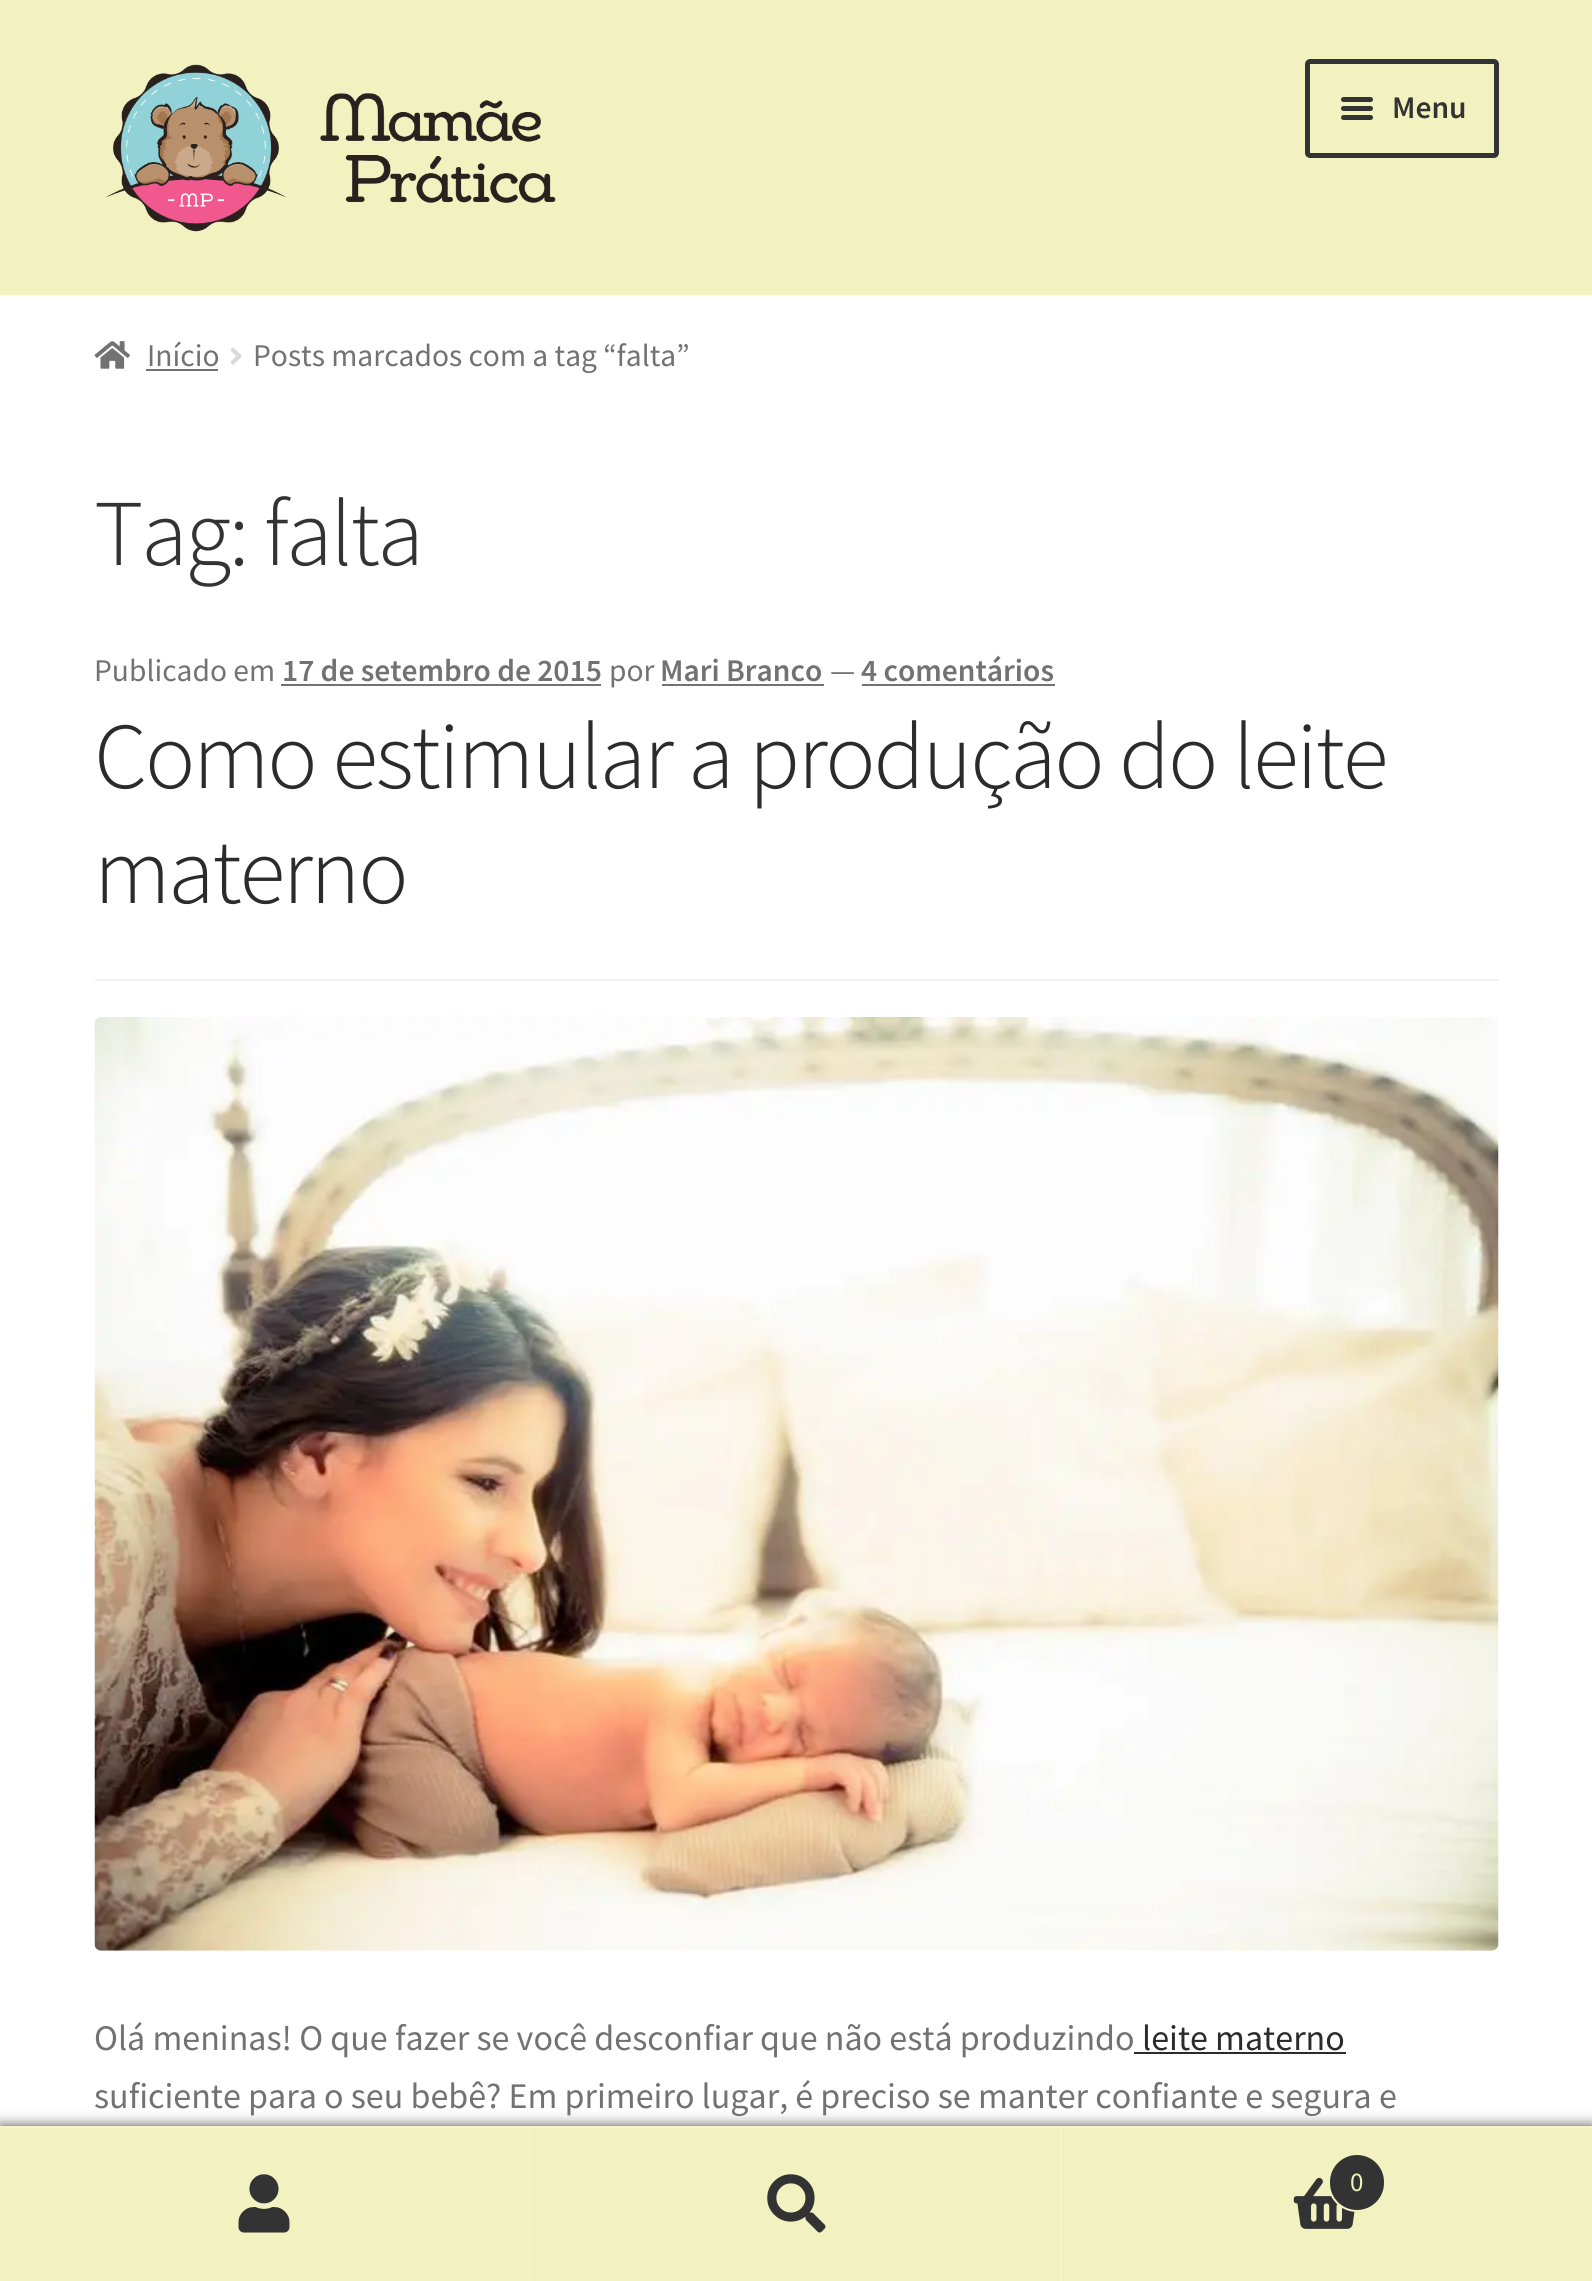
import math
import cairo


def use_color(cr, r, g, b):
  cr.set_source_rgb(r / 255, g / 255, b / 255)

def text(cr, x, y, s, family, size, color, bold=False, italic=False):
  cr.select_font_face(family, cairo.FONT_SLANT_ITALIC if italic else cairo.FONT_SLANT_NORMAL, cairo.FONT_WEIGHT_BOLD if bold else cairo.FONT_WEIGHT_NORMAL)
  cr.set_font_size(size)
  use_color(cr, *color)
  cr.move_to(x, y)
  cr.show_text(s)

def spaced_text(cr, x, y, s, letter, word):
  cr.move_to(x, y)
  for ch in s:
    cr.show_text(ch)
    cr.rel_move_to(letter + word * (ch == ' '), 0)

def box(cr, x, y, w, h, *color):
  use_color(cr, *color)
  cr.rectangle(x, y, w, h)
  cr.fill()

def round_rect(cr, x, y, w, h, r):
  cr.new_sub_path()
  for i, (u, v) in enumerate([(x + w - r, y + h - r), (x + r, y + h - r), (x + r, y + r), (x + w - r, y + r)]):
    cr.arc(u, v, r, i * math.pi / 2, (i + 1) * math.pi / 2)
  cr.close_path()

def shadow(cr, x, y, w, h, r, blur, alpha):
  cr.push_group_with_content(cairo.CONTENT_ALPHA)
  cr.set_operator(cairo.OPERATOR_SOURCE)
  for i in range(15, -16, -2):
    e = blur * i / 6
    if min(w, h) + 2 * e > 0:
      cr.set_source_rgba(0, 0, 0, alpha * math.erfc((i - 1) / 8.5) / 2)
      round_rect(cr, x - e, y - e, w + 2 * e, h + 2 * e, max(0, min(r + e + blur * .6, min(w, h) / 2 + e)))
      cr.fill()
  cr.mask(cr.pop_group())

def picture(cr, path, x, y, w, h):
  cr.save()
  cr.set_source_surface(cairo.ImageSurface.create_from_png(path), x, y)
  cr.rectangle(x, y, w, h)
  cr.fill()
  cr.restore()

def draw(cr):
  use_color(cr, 255, 255, 255)
  cr.paint()
  box(cr, 0, 0, 1592, 295, 242, 242, 193)
  picture(cr, "img_01.png", 105, 64, 451, 168)
  round_rect(cr, 1307.5, 61.5, 189, 94, 2.5)
  use_color(cr, 51, 51, 51)
  cr.set_line_width(5)
  cr.stroke()
  round_rect(cr, 1341, 97, 32, 5, 2.5)
  cr.fill()
  round_rect(cr, 1341, 106, 32, 5, 2.5)
  cr.fill()
  round_rect(cr, 1341, 115, 32, 5, 2.5)
  cr.fill()
  picture(cr, "img_02.png", 94, 341, 36, 28)
  box(cr, 146, 369, 72, 2, 114, 114, 114)
  picture(cr, "img_03.png", 230, 347, 12, 18)
  box(cr, 95, 979, 1404, 2, 242, 242, 242)
  box(cr, 281, 684, 320, 2, 114, 114, 114)
  box(cr, 662, 684, 162, 2, 114, 114, 114)
  box(cr, 862, 684, 193, 2, 114, 114, 114)
  picture(cr, "img_04.png", 94, 1017, 1405, 934)
  box(cr, 1134, 2052, 212, 2, 43, 43, 43)
  use_color(cr, 0, 0, 0)
  shadow(cr, 0, 2126, 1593, 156, 0, 7, 0.7)
  box(cr, 0, 2128, 1592, 1, 242, 242, 193)
  box(cr, 0, 2126, 1592, 2, 245, 245, 205)
  box(cr, 0, 2129, 529, 152, 242, 242, 193)
  box(cr, 529, 2129, 2, 152, 245, 245, 205)
  picture(cr, "img_05.png", 238, 2174, 52, 59)
  box(cr, 531, 2129, 529, 152, 242, 242, 193)
  box(cr, 1060, 2129, 2, 152, 245, 245, 205)
  picture(cr, "img_06.png", 767, 2174, 59, 59)
  box(cr, 1062, 2129, 530, 152, 242, 242, 193)
  picture(cr, "img_07.png", 1293, 2177, 62, 52)
  use_color(cr, 51, 51, 51)
  round_rect(cr, 1329, 2154, 56, 57, 28)
  cr.fill_preserve()
  use_color(cr, 242, 242, 193)
  cr.set_line_width(2)
  cr.stroke()
  text(cr, 1392, 118, "Menu", "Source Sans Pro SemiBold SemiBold", 31.5, (51, 51, 51))
  text(cr, 147, 366, "Início", "Source Sans Pro", 31.5, (114, 114, 114))
  text(cr, 253, 366, "Posts marcados com a tag “falta”", "Source Sans Pro", 31.5, (114, 114, 114))
  cr.select_font_face("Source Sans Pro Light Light")
  cr.set_font_size(94.25)
  use_color(cr, 51, 51, 51)
  spaced_text(cr, 94, 565, "Tag: falta", -2.25, 0)
  text(cr, 94, 681, "Publicado em", "Source Sans Pro", 31.5, (114, 114, 114))
  text(cr, 282, 681, "17 de setembro de 2015", "Source Sans Pro SemiBold SemiBold", 31.5, (114, 114, 114))
  text(cr, 609, 681, "por", "Source Sans Pro", 31.5, (114, 114, 114))
  text(cr, 660, 681, "Mari Branco", "Source Sans Pro SemiBold SemiBold", 31.5, (114, 114, 114))
  text(cr, 830, 681, "—", "Source Sans Pro", 31.5, (114, 114, 114))
  text(cr, 861, 681, "4 comentários", "Source Sans Pro SemiBold SemiBold", 31.5, (114, 114, 114))
  cr.select_font_face("Source Sans Pro Light Light")
  cr.set_font_size(94.25)
  use_color(cr, 43, 43, 43)
  spaced_text(cr, 94, 788, "Como estimular a produção do leite", -2.25, 0)
  spaced_text(cr, 94, 903, "materno", -2.25, 0)
  text(cr, 94, 2050, "Olá meninas! O que fazer se você desconfiar que não está produzindo", "Source Sans Pro", 36, (114, 114, 114))
  text(cr, 1142, 2050, "leite materno", "Source Sans Pro", 36, (43, 43, 43))
  text(cr, 94, 2108, "suficiente para o seu bebê? Em primeiro lugar, é preciso se manter confiante e segura e", "Source Sans Pro", 36, (114, 114, 114))
  text(cr, 1350, 2191, "0", "Source Sans Pro", 27, (242, 242, 193))


surface = cairo.ImageSurface(cairo.FORMAT_RGB24, 1592, 2281)
cr = cairo.Context(surface)
options = cairo.FontOptions()
options.set_hint_metrics(cairo.HINT_METRICS_OFF)
options.set_hint_style(cairo.HINT_STYLE_NONE)
cr.set_font_options(options)
cr.set_miter_limit(4)
draw(cr)
surface.write_to_png("out.png")
